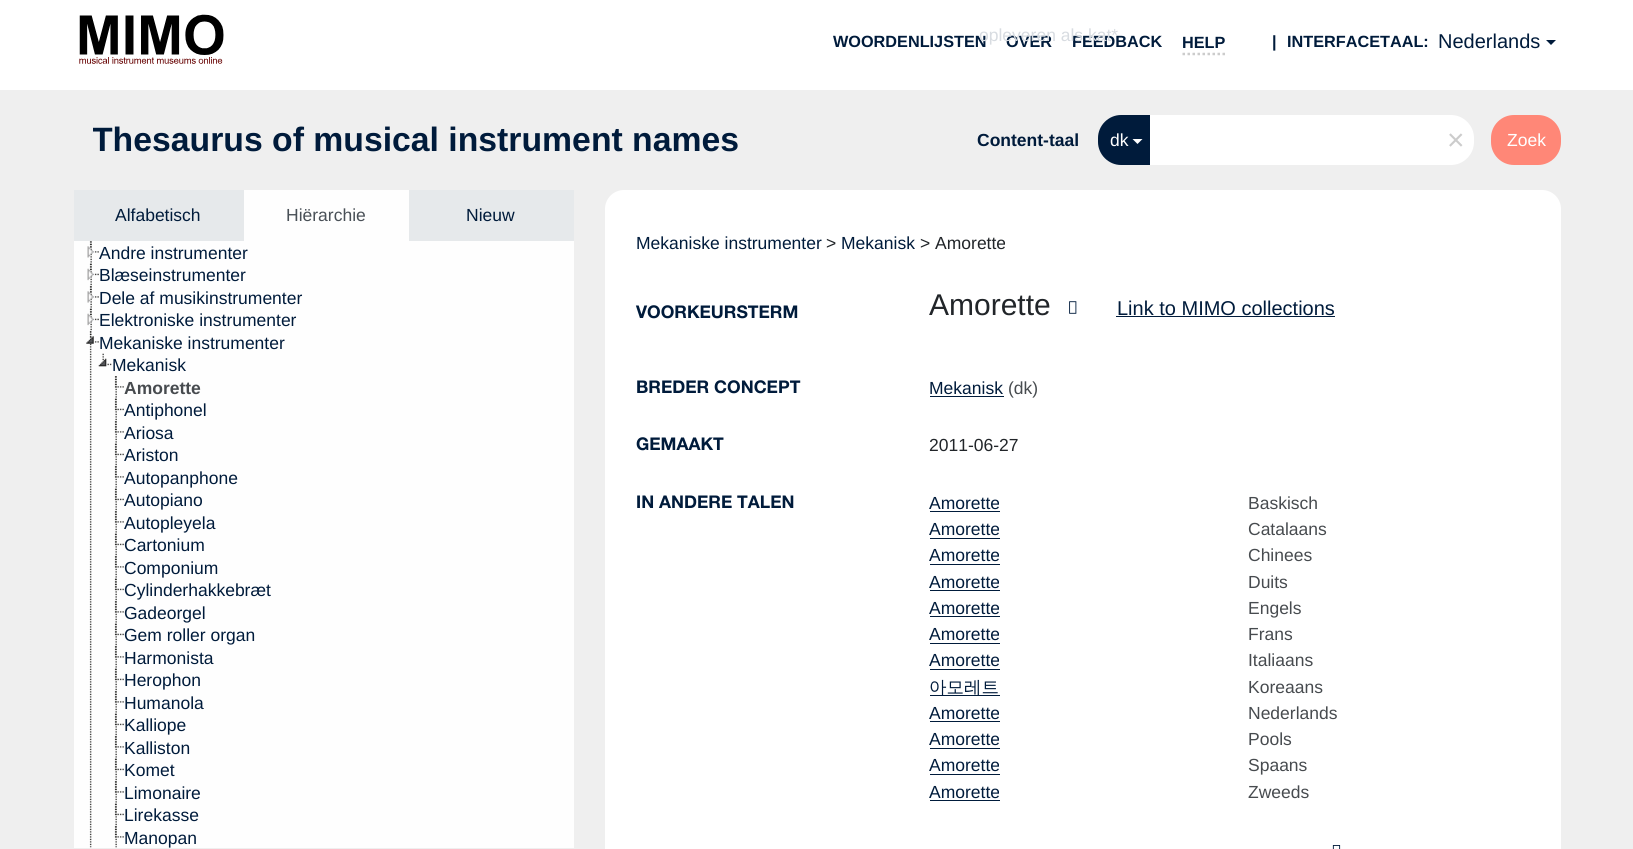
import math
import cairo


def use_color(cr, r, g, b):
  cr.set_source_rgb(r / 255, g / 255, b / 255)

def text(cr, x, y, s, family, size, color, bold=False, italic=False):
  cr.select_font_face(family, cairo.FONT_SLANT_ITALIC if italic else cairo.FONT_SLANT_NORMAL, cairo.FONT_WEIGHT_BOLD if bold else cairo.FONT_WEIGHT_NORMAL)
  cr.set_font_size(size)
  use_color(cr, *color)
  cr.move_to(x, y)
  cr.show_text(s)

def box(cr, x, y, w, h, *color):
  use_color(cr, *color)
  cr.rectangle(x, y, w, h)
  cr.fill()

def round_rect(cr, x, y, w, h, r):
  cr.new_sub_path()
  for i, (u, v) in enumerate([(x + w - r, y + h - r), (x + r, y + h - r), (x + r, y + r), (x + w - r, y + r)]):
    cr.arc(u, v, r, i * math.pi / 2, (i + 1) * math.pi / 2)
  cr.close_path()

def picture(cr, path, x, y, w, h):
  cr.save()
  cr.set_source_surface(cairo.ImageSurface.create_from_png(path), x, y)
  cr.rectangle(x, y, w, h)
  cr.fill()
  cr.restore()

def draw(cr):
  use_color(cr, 239, 239, 239)
  cr.paint()
  box(cr, 0, 0, 1633, 90, 255, 255, 255)
  picture(cr, "img_01.png", 79, 14, 145, 50)
  cr.new_path()
  cr.move_to(1182.5, 54)
  cr.line_to(1226, 54)
  use_color(cr, 204, 204, 204)
  cr.set_line_width(2.5)
  cr.set_dash([2.5, 2.5])
  cr.stroke()
  use_color(cr, 0, 27, 59)
  cr.new_path()
  cr.move_to(1546, 40)
  cr.line_to(1556, 40)
  cr.line_to(1551, 45)
  cr.close_path()
  cr.fill()
  use_color(cr, 255, 255, 255)
  cr.new_path()
  cr.move_to(1149, 115)
  cr.line_to(1451, 115)
  cr.curve_to(1463.5, 115, 1474, 125.5, 1474, 138)
  cr.line_to(1474, 142)
  cr.curve_to(1474, 154.5, 1463.5, 165, 1451, 165)
  cr.line_to(1149, 165)
  cr.close_path()
  cr.fill()
  use_color(cr, 0, 27, 59)
  cr.new_path()
  cr.move_to(1121, 115)
  cr.line_to(1150, 115)
  cr.line_to(1150, 165)
  cr.line_to(1121, 165)
  cr.curve_to(1108.5, 165, 1098, 154.5, 1098, 142)
  cr.line_to(1098, 138)
  cr.curve_to(1098, 125.5, 1108.5, 115, 1121, 115)
  cr.close_path()
  cr.fill()
  use_color(cr, 255, 255, 255)
  cr.new_path()
  cr.move_to(1132.5, 139)
  cr.line_to(1142.5, 139)
  cr.line_to(1137.5, 144)
  cr.close_path()
  cr.fill()
  use_color(cr, 255, 135, 119)
  round_rect(cr, 1491, 115, 70, 50, 23)
  cr.fill()
  box(cr, 74, 190, 170, 51, 230, 233, 235)
  box(cr, 244, 190, 165, 51, 254, 254, 254)
  box(cr, 409, 190, 165, 51, 230, 233, 235)
  box(cr, 74, 241, 500, 607, 254, 254, 254)
  picture(cr, "img_02.png", 90, 241, 2, 22)
  picture(cr, "img_03.png", 87, 241, 12, 17)
  picture(cr, "img_04.png", 90, 263, 2, 23)
  picture(cr, "img_05.png", 87, 263, 12, 18)
  picture(cr, "img_06.png", 90, 286, 2, 22)
  picture(cr, "img_07.png", 87, 286, 12, 17)
  picture(cr, "img_04.png", 90, 308, 2, 23)
  picture(cr, "img_05.png", 87, 308, 12, 18)
  picture(cr, "img_08.png", 89, 331, 3, 517)
  picture(cr, "img_09.png", 86, 331, 13, 13)
  picture(cr, "img_10.png", 98, 353, 14, 14)
  picture(cr, "img_11.png", 115, 376, 2, 22)
  picture(cr, "img_12.png", 114, 376, 10, 12)
  picture(cr, "img_04.png", 115, 398, 2, 23)
  picture(cr, "img_13.png", 114, 398, 10, 13)
  picture(cr, "img_11.png", 115, 421, 2, 22)
  picture(cr, "img_12.png", 114, 421, 10, 12)
  picture(cr, "img_04.png", 115, 443, 2, 23)
  picture(cr, "img_13.png", 114, 443, 10, 13)
  picture(cr, "img_11.png", 115, 466, 2, 22)
  picture(cr, "img_12.png", 114, 466, 10, 12)
  picture(cr, "img_04.png", 115, 488, 2, 23)
  picture(cr, "img_13.png", 114, 488, 10, 13)
  picture(cr, "img_11.png", 115, 511, 2, 22)
  picture(cr, "img_12.png", 114, 511, 10, 12)
  picture(cr, "img_04.png", 115, 533, 2, 23)
  picture(cr, "img_13.png", 114, 533, 10, 13)
  picture(cr, "img_11.png", 115, 556, 2, 22)
  picture(cr, "img_12.png", 114, 556, 10, 12)
  picture(cr, "img_14.png", 115, 578, 2, 23)
  picture(cr, "img_13.png", 114, 578, 10, 13)
  picture(cr, "img_11.png", 115, 601, 2, 22)
  picture(cr, "img_12.png", 114, 601, 10, 12)
  picture(cr, "img_04.png", 115, 623, 2, 23)
  picture(cr, "img_13.png", 114, 623, 10, 13)
  picture(cr, "img_11.png", 115, 646, 2, 22)
  picture(cr, "img_12.png", 114, 646, 10, 12)
  picture(cr, "img_04.png", 115, 668, 2, 23)
  picture(cr, "img_13.png", 114, 668, 10, 13)
  picture(cr, "img_11.png", 115, 691, 2, 22)
  picture(cr, "img_12.png", 114, 691, 10, 12)
  picture(cr, "img_04.png", 115, 713, 2, 23)
  picture(cr, "img_13.png", 114, 713, 10, 13)
  picture(cr, "img_11.png", 115, 736, 2, 22)
  picture(cr, "img_12.png", 114, 736, 10, 12)
  picture(cr, "img_04.png", 115, 758, 2, 23)
  picture(cr, "img_13.png", 114, 758, 10, 13)
  picture(cr, "img_15.png", 115, 781, 2, 22)
  picture(cr, "img_16.png", 114, 781, 10, 12)
  picture(cr, "img_04.png", 115, 803, 2, 23)
  picture(cr, "img_13.png", 114, 803, 10, 13)
  picture(cr, "img_17.png", 115, 826, 2, 22)
  picture(cr, "img_12.png", 114, 826, 10, 12)
  use_color(cr, 255, 255, 255)
  round_rect(cr, 605, 190, 956, 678, 19)
  cr.fill()
  picture(cr, "img_18.png", 1069, 301, 8, 13)
  box(cr, 1116, 316, 219, 1, 0, 27, 59)
  box(cr, 930, 396, 74, 1, 0, 27, 59)
  box(cr, 930, 511, 70, 1, 0, 27, 59)
  box(cr, 930, 538, 70, 1, 0, 27, 59)
  box(cr, 930, 564, 70, 1, 0, 27, 59)
  box(cr, 930, 590, 70, 1, 0, 27, 59)
  box(cr, 930, 616, 70, 1, 0, 27, 59)
  box(cr, 930, 643, 70, 1, 0, 27, 59)
  box(cr, 930, 669, 70, 1, 0, 27, 59)
  box(cr, 930, 695, 70, 1, 0, 27, 59)
  box(cr, 930, 721, 70, 1, 0, 27, 59)
  box(cr, 930, 748, 70, 1, 0, 27, 59)
  box(cr, 930, 774, 70, 1, 0, 27, 59)
  box(cr, 930, 800, 70, 1, 0, 27, 59)
  picture(cr, "img_19.png", 1332, 845, 9, 4)
  text(cr, 833, 47, "WOORDENLIJSTEN", "Liberation Sans", 16.25, (0, 27, 59), bold=True)
  text(cr, 1182, 48, "HELP", "Liberation Sans", 16.25, (0, 27, 59), bold=True)
  text(cr, 1006, 47, "OVER", "Liberation Sans", 16.25, (0, 27, 59), bold=True)
  text(cr, 1072, 47, "FEEDBACK", "Liberation Sans", 16.25, (0, 27, 59), bold=True)
  text(cr, 979, 41, "opleveren als kat*", "Liberation Sans", 17.5, (216, 220, 225))
  text(cr, 1272, 47, "|", "Liberation Sans", 16.25, (0, 27, 59), bold=True)
  text(cr, 1287, 47, "INTERFACETAAL:", "Liberation Sans", 16.25, (0, 27, 59), bold=True)
  text(cr, 1438, 48, "Nederlands", "Liberation Sans", 20, (0, 27, 59))
  cr.save()
  cr.rectangle(93, 109, 646, 62)
  cr.clip()
  text(cr, 92, 151, "Thesaurus of musical instrument names", "Liberation Sans", 33.75, (0, 27, 59), bold=True)
  cr.restore()
  text(cr, 977, 146, "Content-taal", "Liberation Sans", 17.5, (0, 27, 59), bold=True)
  text(cr, 1110, 146, "dk", "Liberation Sans", 17.5, (255, 255, 255))
  text(cr, 1447, 150, "×", "Liberation Sans", 30, (204, 204, 204))
  text(cr, 1507, 146, "Zoek", "Liberation Sans", 17.5, (255, 255, 255))
  text(cr, 115, 221, "Alfabetisch", "Liberation Sans", 17.5, (0, 27, 59))
  text(cr, 286, 221, "Hiërarchie", "Liberation Sans", 17.5, (73, 80, 87))
  text(cr, 466, 221, "Nieuw", "Liberation Sans", 17.5, (0, 27, 59))
  text(cr, 99, 259, "Andre instrumenter", "Liberation Sans", 17.5, (0, 27, 59))
  text(cr, 99, 281, "Blæseinstrumenter", "Liberation Sans", 17.5, (0, 27, 59))
  text(cr, 99, 304, "Dele af musikinstrumenter", "Liberation Sans", 17.5, (0, 27, 59))
  text(cr, 99, 326, "Elektroniske instrumenter", "Liberation Sans", 17.5, (0, 27, 59))
  text(cr, 99, 349, "Mekaniske instrumenter", "Liberation Sans", 17.5, (0, 27, 59))
  text(cr, 112, 371, "Mekanisk", "Liberation Sans", 17.5, (0, 27, 59))
  text(cr, 124, 394, "Amorette", "Liberation Sans", 17.5, (71, 75, 79), bold=True)
  text(cr, 124, 416, "Antiphonel", "Liberation Sans", 17.5, (0, 27, 59))
  text(cr, 124, 439, "Ariosa", "Liberation Sans", 17.5, (0, 27, 59))
  text(cr, 124, 461, "Ariston", "Liberation Sans", 17.5, (0, 27, 59))
  text(cr, 124, 484, "Autopanphone", "Liberation Sans", 17.5, (0, 27, 59))
  text(cr, 124, 506, "Autopiano", "Liberation Sans", 17.5, (0, 27, 59))
  text(cr, 124, 529, "Autopleyela", "Liberation Sans", 17.5, (0, 27, 59))
  text(cr, 124, 551, "Cartonium", "Liberation Sans", 17.5, (0, 27, 59))
  text(cr, 124, 574, "Componium", "Liberation Sans", 17.5, (0, 27, 59))
  text(cr, 124, 596, "Cylinderhakkebræt", "Liberation Sans", 17.5, (0, 27, 59))
  text(cr, 124, 619, "Gadeorgel", "Liberation Sans", 17.5, (0, 27, 59))
  text(cr, 124, 641, "Gem roller organ", "Liberation Sans", 17.5, (0, 27, 59))
  text(cr, 124, 664, "Harmonista", "Liberation Sans", 17.5, (0, 27, 59))
  text(cr, 124, 686, "Herophon", "Liberation Sans", 17.5, (0, 27, 59))
  text(cr, 124, 709, "Humanola", "Liberation Sans", 17.5, (0, 27, 59))
  text(cr, 124, 731, "Kalliope", "Liberation Sans", 17.5, (0, 27, 59))
  text(cr, 124, 754, "Kalliston", "Liberation Sans", 17.5, (0, 27, 59))
  text(cr, 124, 776, "Komet", "Liberation Sans", 17.5, (0, 27, 59))
  text(cr, 124, 799, "Limonaire", "Liberation Sans", 17.5, (0, 27, 59))
  text(cr, 124, 821, "Lirekasse", "Liberation Sans", 17.5, (0, 27, 59))
  text(cr, 124, 844, "Manopan", "Liberation Sans", 17.5, (0, 27, 59))
  text(cr, 636, 249, "Mekaniske instrumenter", "Liberation Sans", 17.5, (0, 27, 59))
  text(cr, 826, 249, ">", "Liberation Sans", 17.5, (33, 37, 41))
  text(cr, 841, 249, "Mekanisk", "Liberation Sans", 17.5, (0, 27, 59))
  text(cr, 920, 249, "> Amorette", "Liberation Sans", 17.5, (33, 37, 41))
  text(cr, 636, 318, "VOORKEURSTERM", "Helvetica Neue", 17.5, (0, 27, 59), bold=True)
  text(cr, 929, 315, "Amorette", "Liberation Sans", 30, (33, 37, 41))
  text(cr, 1117, 315, "Link to MIMO collections", "Liberation Sans", 20, (0, 27, 59))
  text(cr, 636, 393, "BREDER CONCEPT", "Helvetica Neue", 17.5, (0, 27, 59), bold=True)
  text(cr, 929, 394, "Mekanisk", "Liberation Sans", 17.5, (0, 27, 59))
  text(cr, 1008, 394, "(dk)", "Liberation Sans", 17.5, (71, 75, 79))
  text(cr, 636, 450, "GEMAAKT", "Helvetica Neue", 17.5, (0, 27, 59), bold=True)
  text(cr, 929, 451, "2011-06-27", "Liberation Sans", 17.5, (33, 37, 41))
  text(cr, 636, 508, "IN ANDERE TALEN", "Helvetica Neue", 17.5, (0, 27, 59), bold=True)
  text(cr, 929, 509, "Amorette", "Liberation Sans", 17.5, (0, 27, 59))
  text(cr, 1248, 509, "Baskisch", "Liberation Sans", 17.5, (71, 75, 79))
  text(cr, 929, 535, "Amorette", "Liberation Sans", 17.5, (0, 27, 59))
  text(cr, 1248, 535, "Catalaans", "Liberation Sans", 17.5, (71, 75, 79))
  text(cr, 929, 561, "Amorette", "Liberation Sans", 17.5, (0, 27, 59))
  text(cr, 1248, 561, "Chinees", "Liberation Sans", 17.5, (71, 75, 79))
  text(cr, 929, 588, "Amorette", "Liberation Sans", 17.5, (0, 27, 59))
  text(cr, 1248, 588, "Duits", "Liberation Sans", 17.5, (71, 75, 79))
  text(cr, 929, 614, "Amorette", "Liberation Sans", 17.5, (0, 27, 59))
  text(cr, 1248, 614, "Engels", "Liberation Sans", 17.5, (71, 75, 79))
  text(cr, 929, 640, "Amorette", "Liberation Sans", 17.5, (0, 27, 59))
  text(cr, 1248, 640, "Frans", "Liberation Sans", 17.5, (71, 75, 79))
  text(cr, 929, 666, "Amorette", "Liberation Sans", 17.5, (0, 27, 59))
  text(cr, 1248, 666, "Italiaans", "Liberation Sans", 17.5, (71, 75, 79))
  text(cr, 929, 693, "아모레트", "WenQuanYi Zen Hei Medium", 17.5, (0, 27, 59))
  text(cr, 1248, 693, "Koreaans", "Liberation Sans", 17.5, (71, 75, 79))
  text(cr, 929, 719, "Amorette", "Liberation Sans", 17.5, (0, 27, 59))
  text(cr, 1248, 719, "Nederlands", "Liberation Sans", 17.5, (71, 75, 79))
  text(cr, 929, 745, "Amorette", "Liberation Sans", 17.5, (0, 27, 59))
  text(cr, 1248, 745, "Pools", "Liberation Sans", 17.5, (71, 75, 79))
  text(cr, 929, 771, "Amorette", "Liberation Sans", 17.5, (0, 27, 59))
  text(cr, 1248, 771, "Spaans", "Liberation Sans", 17.5, (71, 75, 79))
  text(cr, 929, 798, "Amorette", "Liberation Sans", 17.5, (0, 27, 59))
  text(cr, 1248, 798, "Zweeds", "Liberation Sans", 17.5, (71, 75, 79))


surface = cairo.ImageSurface(cairo.FORMAT_RGB24, 1633, 849)
cr = cairo.Context(surface)
options = cairo.FontOptions()
options.set_hint_metrics(cairo.HINT_METRICS_OFF)
options.set_hint_style(cairo.HINT_STYLE_NONE)
cr.set_font_options(options)
cr.set_miter_limit(4)
draw(cr)
surface.write_to_png("out.png")
